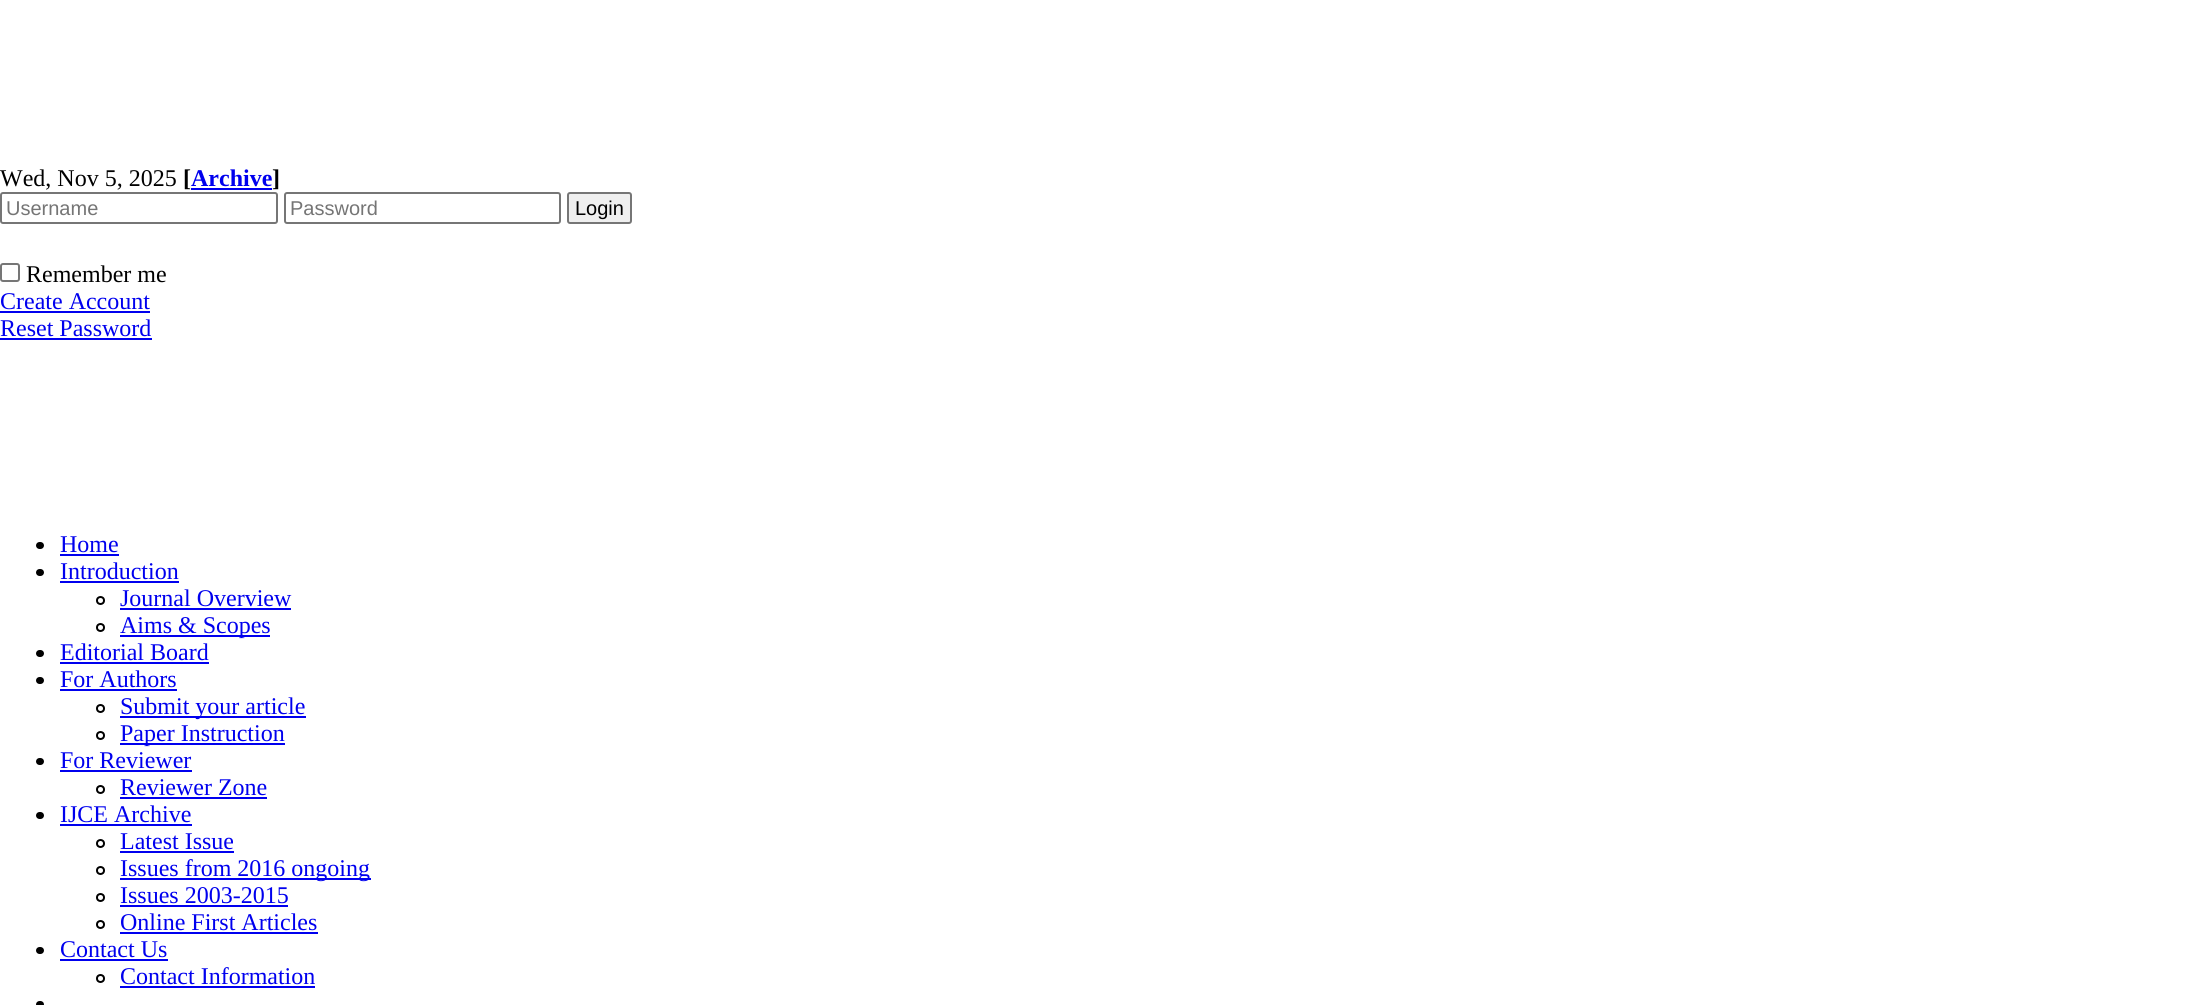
import math
import cairo


def use_color(cr, r, g, b):
  cr.set_source_rgb(r / 255, g / 255, b / 255)

def text(cr, x, y, s, family, size, color, bold=False, italic=False):
  cr.select_font_face(family, cairo.FONT_SLANT_ITALIC if italic else cairo.FONT_SLANT_NORMAL, cairo.FONT_WEIGHT_BOLD if bold else cairo.FONT_WEIGHT_NORMAL)
  cr.set_font_size(size)
  use_color(cr, *color)
  cr.move_to(x, y)
  cr.show_text(s)

def box(cr, x, y, w, h, *color):
  use_color(cr, *color)
  cr.rectangle(x, y, w, h)
  cr.fill()

def round_rect(cr, x, y, w, h, r):
  cr.new_sub_path()
  for i, (u, v) in enumerate([(x + w - r, y + h - r), (x + r, y + h - r), (x + r, y + r), (x + w - r, y + r)]):
    cr.arc(u, v, r, i * math.pi / 2, (i + 1) * math.pi / 2)
  cr.close_path()

def draw(cr):
  use_color(cr, 255, 255, 255)
  cr.paint()
  box(cr, 191, 188, 81, 2, 0, 0, 238)
  round_rect(cr, 1, 193, 276, 30, 2)
  use_color(cr, 118, 118, 118)
  cr.stroke()
  round_rect(cr, 285, 193, 275, 30, 2)
  cr.stroke()
  use_color(cr, 239, 239, 239)
  round_rect(cr, 568, 193, 63, 30, 2)
  cr.fill_preserve()
  use_color(cr, 118, 118, 118)
  cr.stroke()
  round_rect(cr, 1, 264, 18, 17, 2)
  cr.stroke()
  box(cr, 0, 311, 150, 2, 0, 0, 238)
  box(cr, 0, 338, 152, 2, 0, 0, 238)
  use_color(cr, 0, 0, 0)
  round_rect(cr, 36, 542, 8, 7, 3.5)
  cr.fill()
  box(cr, 60, 554, 59, 2, 0, 0, 238)
  use_color(cr, 0, 0, 0)
  round_rect(cr, 36, 569, 8, 7, 3.5)
  cr.fill()
  box(cr, 60, 581, 119, 2, 0, 0, 238)
  cr.arc(100.5, 600.5, 3.5, 0, 2 * math.pi)
  use_color(cr, 0, 0, 0)
  cr.stroke()
  box(cr, 120, 608, 171, 2, 0, 0, 238)
  cr.arc(100.5, 627.5, 3.5, 0, 2 * math.pi)
  use_color(cr, 0, 0, 0)
  cr.stroke()
  box(cr, 120, 635, 150, 2, 0, 0, 238)
  use_color(cr, 0, 0, 0)
  round_rect(cr, 36, 650, 8, 7, 3.5)
  cr.fill()
  box(cr, 60, 662, 149, 2, 0, 0, 238)
  use_color(cr, 0, 0, 0)
  round_rect(cr, 36, 677, 8, 7, 3.5)
  cr.fill()
  box(cr, 60, 689, 117, 2, 0, 0, 238)
  cr.arc(100.5, 708.5, 3.5, 0, 2 * math.pi)
  use_color(cr, 0, 0, 0)
  cr.stroke()
  box(cr, 120, 716, 186, 2, 0, 0, 238)
  cr.arc(100.5, 735.5, 3.5, 0, 2 * math.pi)
  use_color(cr, 0, 0, 0)
  cr.stroke()
  box(cr, 120, 743, 165, 2, 0, 0, 238)
  use_color(cr, 0, 0, 0)
  round_rect(cr, 36, 758, 8, 7, 3.5)
  cr.fill()
  box(cr, 60, 770, 132, 2, 0, 0, 238)
  cr.arc(100.5, 789.5, 3.5, 0, 2 * math.pi)
  use_color(cr, 0, 0, 0)
  cr.stroke()
  box(cr, 120, 797, 147, 2, 0, 0, 238)
  use_color(cr, 0, 0, 0)
  round_rect(cr, 36, 812, 8, 7, 3.5)
  cr.fill()
  box(cr, 60, 824, 132, 2, 0, 0, 238)
  cr.arc(100.5, 843.5, 3.5, 0, 2 * math.pi)
  use_color(cr, 0, 0, 0)
  cr.stroke()
  box(cr, 120, 851, 114, 2, 0, 0, 238)
  cr.arc(100.5, 870.5, 3.5, 0, 2 * math.pi)
  use_color(cr, 0, 0, 0)
  cr.stroke()
  box(cr, 120, 878, 251, 2, 0, 0, 238)
  cr.arc(100.5, 897.5, 3.5, 0, 2 * math.pi)
  use_color(cr, 0, 0, 0)
  cr.stroke()
  box(cr, 120, 905, 168, 2, 0, 0, 238)
  cr.arc(100.5, 924.5, 3.5, 0, 2 * math.pi)
  use_color(cr, 0, 0, 0)
  cr.stroke()
  box(cr, 120, 932, 198, 2, 0, 0, 238)
  use_color(cr, 0, 0, 0)
  round_rect(cr, 36, 947, 8, 7, 3.5)
  cr.fill()
  box(cr, 60, 959, 108, 2, 0, 0, 238)
  cr.arc(100.5, 978.5, 3.5, 0, 2 * math.pi)
  use_color(cr, 0, 0, 0)
  cr.stroke()
  box(cr, 120, 986, 195, 2, 0, 0, 238)
  use_color(cr, 0, 0, 0)
  round_rect(cr, 36, 1001, 8, 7, 3.5)
  cr.fill()
  text(cr, 0, 186, "Wed, Nov 5, 2025", "Liberation Serif", 24, (0, 0, 0))
  text(cr, 183, 186, "[", "Liberation Serif", 24, (0, 0, 0), bold=True)
  text(cr, 191, 186, "Archive", "Liberation Serif", 24, (0, 0, 238), bold=True)
  text(cr, 272, 186, "]", "Liberation Serif", 24, (0, 0, 0), bold=True)
  text(cr, 6, 215, "Username", "Liberation Sans", 20, (117, 117, 117))
  text(cr, 290, 215, "Password", "Liberation Sans", 20, (117, 117, 117))
  text(cr, 575, 215, "Login", "Liberation Sans", 20, (0, 0, 0))
  text(cr, 26, 282, "Remember me", "Liberation Serif", 24, (0, 0, 0))
  text(cr, 0, 309, "Create Account", "Liberation Serif", 24, (0, 0, 238))
  text(cr, 0, 336, "Reset Password", "Liberation Serif", 24, (0, 0, 238))
  text(cr, 60, 552, "Home", "Liberation Serif", 24, (0, 0, 238))
  text(cr, 60, 579, "Introduction", "Liberation Serif", 24, (0, 0, 238))
  text(cr, 120, 606, "Journal Overview", "Liberation Serif", 24, (0, 0, 238))
  text(cr, 120, 633, "Aims & Scopes", "Liberation Serif", 24, (0, 0, 238))
  text(cr, 60, 660, "Editorial Board", "Liberation Serif", 24, (0, 0, 238))
  text(cr, 60, 687, "For Authors", "Liberation Serif", 24, (0, 0, 238))
  text(cr, 120, 714, "Submit your article", "Liberation Serif", 24, (0, 0, 238))
  text(cr, 120, 741, "Paper Instruction", "Liberation Serif", 24, (0, 0, 238))
  text(cr, 60, 768, "For Reviewer", "Liberation Serif", 24, (0, 0, 238))
  text(cr, 120, 795, "Reviewer Zone", "Liberation Serif", 24, (0, 0, 238))
  text(cr, 60, 822, "IJCE Archive", "Liberation Serif", 24, (0, 0, 238))
  text(cr, 120, 849, "Latest Issue", "Liberation Serif", 24, (0, 0, 238))
  text(cr, 120, 876, "Issues from 2016 ongoing", "Liberation Serif", 24, (0, 0, 238))
  text(cr, 120, 903, "Issues 2003-2015", "Liberation Serif", 24, (0, 0, 238))
  text(cr, 120, 930, "Online First Articles", "Liberation Serif", 24, (0, 0, 238))
  text(cr, 60, 957, "Contact Us", "Liberation Serif", 24, (0, 0, 238))
  text(cr, 120, 984, "Contact Information", "Liberation Serif", 24, (0, 0, 238))


surface = cairo.ImageSurface(cairo.FORMAT_RGB24, 2191, 1005)
cr = cairo.Context(surface)
options = cairo.FontOptions()
options.set_hint_metrics(cairo.HINT_METRICS_OFF)
options.set_hint_style(cairo.HINT_STYLE_NONE)
cr.set_font_options(options)
cr.set_miter_limit(4)
draw(cr)
surface.write_to_png("out.png")
